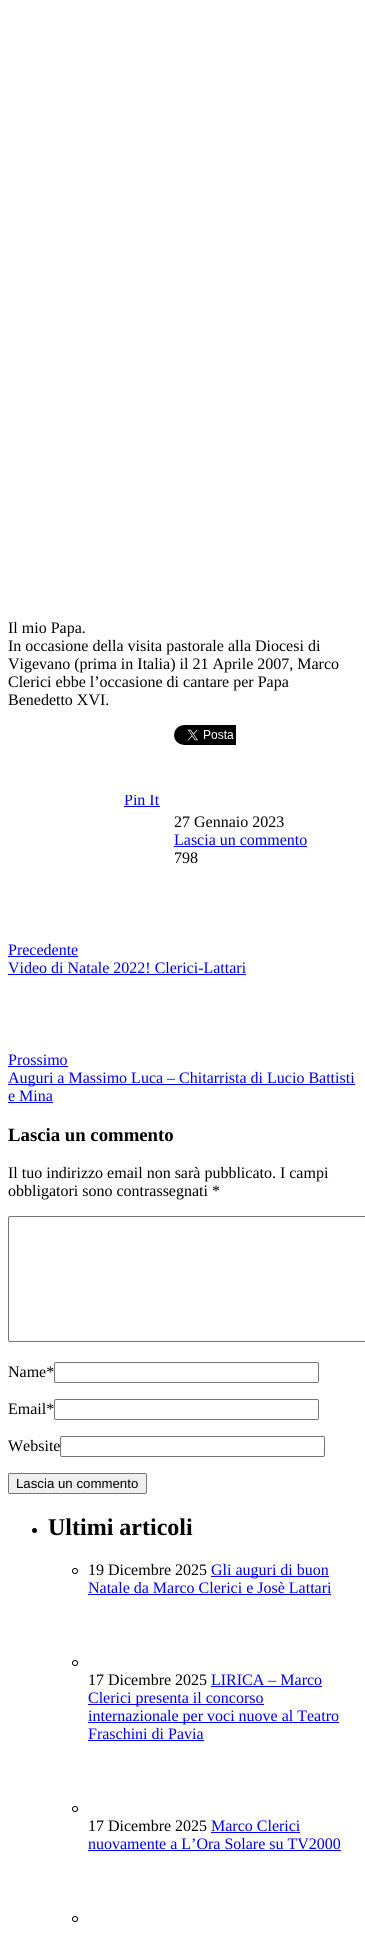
import math
import cairo


def use_color(cr, r, g, b):
  cr.set_source_rgb(r / 255, g / 255, b / 255)

def text(cr, x, y, s, family, size, color, bold=False, italic=False):
  cr.select_font_face(family, cairo.FONT_SLANT_ITALIC if italic else cairo.FONT_SLANT_NORMAL, cairo.FONT_WEIGHT_BOLD if bold else cairo.FONT_WEIGHT_NORMAL)
  cr.set_font_size(size)
  use_color(cr, *color)
  cr.move_to(x, y)
  cr.show_text(s)

def box(cr, x, y, w, h, *color):
  use_color(cr, *color)
  cr.rectangle(x, y, w, h)
  cr.fill()

def round_rect(cr, x, y, w, h, r):
  cr.new_sub_path()
  for i, (u, v) in enumerate([(x + w - r, y + h - r), (x + r, y + h - r), (x + r, y + r), (x + w - r, y + r)]):
    cr.arc(u, v, r, i * math.pi / 2, (i + 1) * math.pi / 2)
  cr.close_path()

def picture(cr, path, x, y, w, h):
  cr.save()
  cr.set_source_surface(cairo.ImageSurface.create_from_png(path), x, y)
  cr.rectangle(x, y, w, h)
  cr.fill()
  cr.restore()

def draw(cr):
  use_color(cr, 255, 255, 255)
  cr.paint()
  picture(cr, "img_01.png", 174, 725, 62, 20)
  box(cr, 124, 806, 36, 1, 0, 0, 238)
  box(cr, 174, 846, 133, 1, 0, 0, 238)
  box(cr, 8, 956, 70, 1, 0, 0, 238)
  box(cr, 8, 974, 238, 1, 0, 0, 238)
  box(cr, 8, 1066, 60, 1, 0, 0, 238)
  box(cr, 8, 1084, 347, 1, 0, 0, 238)
  box(cr, 8, 1102, 45, 1, 0, 0, 238)
  round_rect(cr, 8.5, 1216.5, 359, 125, 1.5)
  use_color(cr, 118, 118, 118)
  cr.set_line_width(1)
  cr.stroke()
  round_rect(cr, 54.5, 1362.5, 264, 20, 1.5)
  cr.stroke()
  round_rect(cr, 54.5, 1399.5, 264, 20, 1.5)
  cr.stroke()
  round_rect(cr, 60.5, 1436.5, 264, 20, 1.5)
  cr.stroke()
  use_color(cr, 239, 239, 239)
  round_rect(cr, 8.5, 1473.5, 138, 20, 1.5)
  cr.fill_preserve()
  use_color(cr, 118, 118, 118)
  cr.stroke()
  use_color(cr, 0, 0, 0)
  cr.arc(34.5, 1530.5, 2.5, 0, 2 * math.pi)
  cr.fill()
  cr.arc(75, 1571, 2.5, 0, 2 * math.pi)
  cr.stroke()
  box(cr, 211, 1576, 118, 1, 0, 0, 238)
  box(cr, 88, 1594, 243, 1, 0, 0, 238)
  cr.arc(75, 1663, 2.5, 0, 2 * math.pi)
  use_color(cr, 0, 0, 0)
  cr.stroke()
  box(cr, 211, 1686, 111, 1, 0, 0, 238)
  box(cr, 88, 1704, 176, 1, 0, 0, 238)
  box(cr, 88, 1722, 251, 1, 0, 0, 238)
  box(cr, 88, 1740, 116, 1, 0, 0, 238)
  cr.arc(75, 1809, 2.5, 0, 2 * math.pi)
  use_color(cr, 0, 0, 0)
  cr.stroke()
  box(cr, 211, 1832, 89, 1, 0, 0, 238)
  box(cr, 88, 1850, 253, 1, 0, 0, 238)
  cr.arc(75, 1919, 2.5, 0, 2 * math.pi)
  use_color(cr, 0, 0, 0)
  cr.stroke()
  text(cr, 8, 633, "Il mio Papa.", "Liberation Serif", 16, (0, 0, 0))
  text(cr, 8, 651, "In occasione della visita pastorale alla Diocesi di", "Liberation Serif", 16, (0, 0, 0))
  text(cr, 8, 669, "Vigevano (prima in Italia) il 21 Aprile 2007, Marco", "Liberation Serif", 16, (0, 0, 0))
  text(cr, 8, 687, "Clerici ebbe l’occasione di cantare per Papa", "Liberation Serif", 16, (0, 0, 0))
  text(cr, 8, 705, "Benedetto XVI.", "Liberation Serif", 16, (0, 0, 0))
  cr.save()
  cr.rectangle(111, 795, 62, 70)
  cr.clip()
  text(cr, 124, 805, "Pin It", "Liberation Serif", 16, (0, 0, 238))
  cr.restore()
  text(cr, 174, 827, "27 Gennaio 2023", "Liberation Serif", 16, (0, 0, 0))
  text(cr, 174, 845, "Lascia un commento", "Liberation Serif", 16, (0, 0, 238))
  text(cr, 174, 863, "798", "Liberation Serif", 16, (0, 0, 0))
  text(cr, 8, 955, "Precedente", "Liberation Serif", 16, (0, 0, 238))
  text(cr, 8, 973, "Video di Natale 2022! Clerici-Lattari", "Liberation Serif", 16, (0, 0, 238))
  text(cr, 8, 1065, "Prossimo", "Liberation Serif", 16, (0, 0, 238))
  text(cr, 8, 1083, "Auguri a Massimo Luca – Chitarrista di Lucio Battisti", "Liberation Serif", 16, (0, 0, 238))
  text(cr, 8, 1101, "e Mina", "Liberation Serif", 16, (0, 0, 238))
  text(cr, 8, 1141, "Lascia un commento", "Liberation Serif", 18.75, (0, 0, 0), bold=True)
  text(cr, 8, 1178, "Il tuo indirizzo email non sarà pubblicato. I campi", "Liberation Serif", 16, (0, 0, 0))
  text(cr, 8, 1196, "obbligatori sono contrassegnati *", "Liberation Serif", 16, (0, 0, 0))
  text(cr, 8, 1377, "Name*", "Liberation Serif", 16, (0, 0, 0))
  text(cr, 8, 1414, "Email*", "Liberation Serif", 16, (0, 0, 0))
  text(cr, 8, 1451, "Website", "Liberation Serif", 16, (0, 0, 0))
  text(cr, 16, 1488, "Lascia un commento", "Liberation Sans", 13.25, (0, 0, 0))
  text(cr, 48, 1535, "Ultimi articoli", "Liberation Serif", 24, (0, 0, 0), bold=True)
  text(cr, 88, 1575, "19 Dicembre 2025", "Liberation Serif", 16, (0, 0, 0))
  text(cr, 211, 1575, "Gli auguri di buon", "Liberation Serif", 16, (0, 0, 238))
  text(cr, 88, 1593, "Natale da Marco Clerici e Josè Lattari", "Liberation Serif", 16, (0, 0, 238))
  text(cr, 88, 1685, "17 Dicembre 2025", "Liberation Serif", 16, (0, 0, 0))
  text(cr, 211, 1685, "LIRICA – Marco", "Liberation Serif", 16, (0, 0, 238))
  text(cr, 88, 1703, "Clerici presenta il concorso", "Liberation Serif", 16, (0, 0, 238))
  text(cr, 88, 1721, "internazionale per voci nuove al Teatro", "Liberation Serif", 16, (0, 0, 238))
  text(cr, 88, 1739, "Fraschini di Pavia", "Liberation Serif", 16, (0, 0, 238))
  text(cr, 88, 1831, "17 Dicembre 2025", "Liberation Serif", 16, (0, 0, 0))
  text(cr, 211, 1831, "Marco Clerici", "Liberation Serif", 16, (0, 0, 238))
  text(cr, 88, 1849, "nuovamente a L’Ora Solare su TV2000", "Liberation Serif", 16, (0, 0, 238))


surface = cairo.ImageSurface(cairo.FORMAT_RGB24, 365, 1935)
cr = cairo.Context(surface)
options = cairo.FontOptions()
options.set_hint_metrics(cairo.HINT_METRICS_OFF)
options.set_hint_style(cairo.HINT_STYLE_NONE)
cr.set_font_options(options)
cr.set_miter_limit(4)
draw(cr)
surface.write_to_png("out.png")
